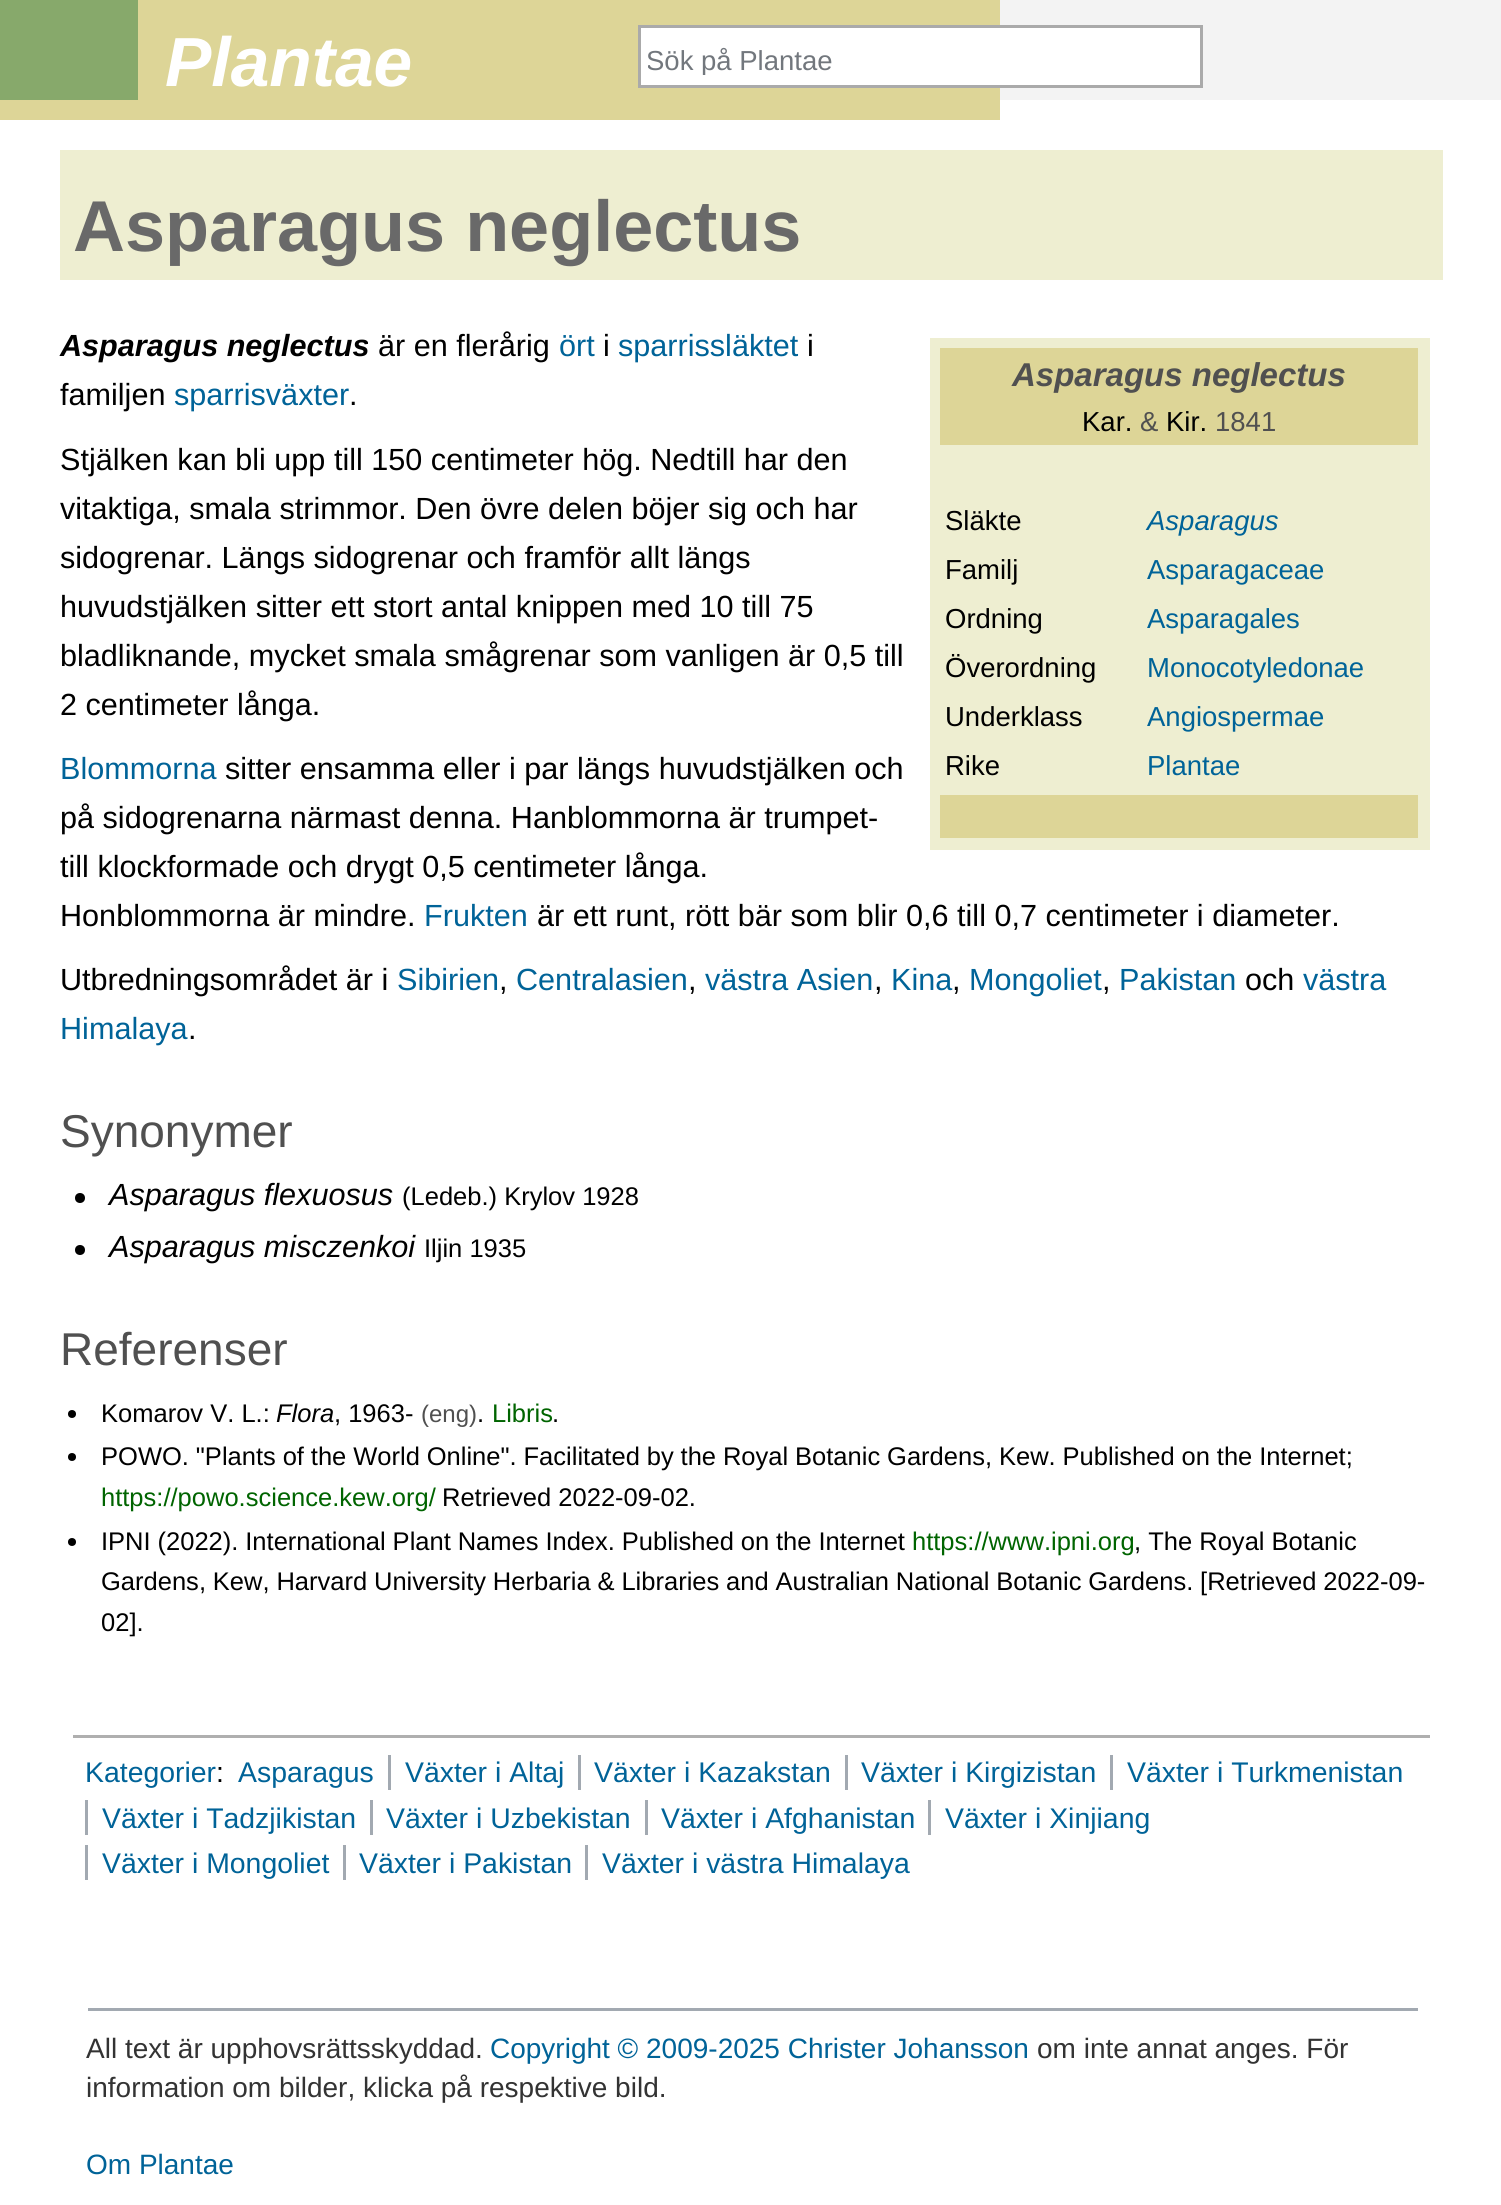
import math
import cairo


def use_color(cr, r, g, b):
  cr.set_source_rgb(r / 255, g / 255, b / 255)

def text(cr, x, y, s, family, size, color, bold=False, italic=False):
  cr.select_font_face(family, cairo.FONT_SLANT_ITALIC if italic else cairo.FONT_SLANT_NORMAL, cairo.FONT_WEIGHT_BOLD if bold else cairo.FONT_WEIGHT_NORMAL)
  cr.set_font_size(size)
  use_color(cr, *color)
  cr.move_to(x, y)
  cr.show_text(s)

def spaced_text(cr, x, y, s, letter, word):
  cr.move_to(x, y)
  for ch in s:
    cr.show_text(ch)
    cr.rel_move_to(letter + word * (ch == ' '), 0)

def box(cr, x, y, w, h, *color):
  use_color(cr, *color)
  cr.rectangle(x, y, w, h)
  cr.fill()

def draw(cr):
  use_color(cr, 243, 243, 243)
  cr.paint()
  box(cr, 0, 100, 1501, 2105, 255, 255, 255)
  box(cr, 0, 0, 1000, 120, 221, 213, 151)
  box(cr, 0, 0, 138, 100, 135, 169, 107)
  use_color(cr, 255, 255, 255)
  cr.rectangle(639.5, 26.5, 562, 60)
  cr.fill_preserve()
  use_color(cr, 170, 170, 170)
  cr.set_line_width(3)
  cr.stroke()
  box(cr, 60, 150, 1383, 130, 238, 238, 209)
  box(cr, 930, 338, 500, 512, 238, 238, 209)
  box(cr, 940, 348, 478, 97, 221, 213, 151)
  box(cr, 940, 795, 478, 43, 221, 213, 151)
  use_color(cr, 0, 0, 0)
  cr.arc(80, 1198, 5, 0, 2 * math.pi)
  cr.fill()
  cr.arc(80, 1250, 5, 0, 2 * math.pi)
  cr.fill()
  cr.arc(72, 1414, 4, 0, 2 * math.pi)
  cr.fill()
  cr.arc(72, 1457, 4, 0, 2 * math.pi)
  cr.fill()
  cr.arc(72, 1542, 4, 0, 2 * math.pi)
  cr.fill()
  box(cr, 73, 1735, 1357, 3, 175, 175, 175)
  box(cr, 388, 1755, 3, 35, 162, 169, 177)
  box(cr, 578, 1755, 3, 35, 162, 169, 177)
  box(cr, 845, 1755, 3, 35, 162, 169, 177)
  box(cr, 1110, 1755, 3, 35, 162, 169, 177)
  box(cr, 85, 1800, 3, 35, 162, 169, 177)
  box(cr, 370, 1800, 3, 35, 162, 169, 177)
  box(cr, 645, 1800, 3, 35, 162, 169, 177)
  box(cr, 928, 1800, 3, 35, 162, 169, 177)
  box(cr, 85, 1845, 3, 35, 162, 169, 177)
  box(cr, 343, 1845, 3, 35, 162, 169, 177)
  box(cr, 585, 1845, 3, 35, 162, 169, 177)
  box(cr, 88, 2008, 1330, 3, 162, 169, 177)
  text(cr, 165, 86, "Plantae", "Liberation Sans", 69.5, (255, 255, 255), bold=True, italic=True)
  cr.save()
  cr.rectangle(648, 45, 467, 30)
  cr.clip()
  text(cr, 646, 70, "Sök på Plantae", "Liberation Sans", 27.5, (114, 119, 125))
  cr.restore()
  text(cr, 73, 251, "Asparagus neglectus", "Liberation Sans", 72, (105, 105, 105), bold=True)
  text(cr, 60, 356, "Asparagus neglectus", "Liberation Sans", 30.6, (0, 0, 0), bold=True, italic=True)
  text(cr, 378, 356, "är en flerårig", "Liberation Sans", 30.6, (0, 0, 0))
  text(cr, 559, 356, "ört", "Liberation Sans", 30.6, (0, 99, 152))
  text(cr, 603, 356, "i", "Liberation Sans", 30.6, (0, 0, 0))
  text(cr, 618, 356, "sparrissläktet", "Liberation Sans", 30.6, (0, 99, 152))
  text(cr, 807, 356, "i", "Liberation Sans", 30.6, (0, 0, 0))
  text(cr, 60, 405, "familjen", "Liberation Sans", 30.6, (0, 0, 0))
  text(cr, 174, 405, "sparrisväxter", "Liberation Sans", 30.6, (0, 99, 152))
  text(cr, 349, 405, ".", "Liberation Sans", 30.6, (0, 0, 0))
  text(cr, 1012, 386, "Asparagus neglectus", "Liberation Sans", 33, (80, 80, 80), bold=True, italic=True)
  text(cr, 1082, 431, "Kar.", "Liberation Sans", 27.5, (0, 0, 0))
  text(cr, 1140, 431, "&", "Liberation Sans", 27.5, (80, 80, 80))
  text(cr, 1166, 431, "Kir.", "Liberation Sans", 27.5, (0, 0, 0))
  text(cr, 1215, 431, "1841", "Liberation Sans", 27.5, (80, 80, 80))
  text(cr, 945, 530, "Släkte", "Liberation Sans", 27.5, (0, 0, 0))
  text(cr, 1147, 530, "Asparagus", "Liberation Sans", 27.5, (0, 99, 152), italic=True)
  text(cr, 945, 579, "Familj", "Liberation Sans", 27.5, (0, 0, 0))
  text(cr, 1147, 579, "Asparagaceae", "Liberation Sans", 27.5, (0, 99, 152))
  text(cr, 945, 628, "Ordning", "Liberation Sans", 27.5, (0, 0, 0))
  text(cr, 1147, 628, "Asparagales", "Liberation Sans", 27.5, (0, 99, 152))
  text(cr, 945, 677, "Överordning", "Liberation Sans", 27.5, (0, 0, 0))
  text(cr, 1147, 677, "Monocotyledonae", "Liberation Sans", 27.5, (0, 99, 152))
  text(cr, 945, 726, "Underklass", "Liberation Sans", 27.5, (0, 0, 0))
  text(cr, 1147, 726, "Angiospermae", "Liberation Sans", 27.5, (0, 99, 152))
  text(cr, 945, 775, "Rike", "Liberation Sans", 27.5, (0, 0, 0))
  text(cr, 1147, 775, "Plantae", "Liberation Sans", 27.5, (0, 99, 152))
  text(cr, 60, 470, "Stjälken kan bli upp till 150 centimeter hög. Nedtill har den", "Liberation Sans", 30.6, (0, 0, 0))
  text(cr, 60, 519, "vitaktiga, smala strimmor. Den övre delen böjer sig och har", "Liberation Sans", 30.6, (0, 0, 0))
  text(cr, 60, 568, "sidogrenar. Längs sidogrenar och framför allt längs", "Liberation Sans", 30.6, (0, 0, 0))
  text(cr, 60, 617, "huvudstjälken sitter ett stort antal knippen med 10 till 75", "Liberation Sans", 30.6, (0, 0, 0))
  text(cr, 60, 666, "bladliknande, mycket smala smågrenar som vanligen är 0,5 till", "Liberation Sans", 30.6, (0, 0, 0))
  text(cr, 60, 715, "2 centimeter långa.", "Liberation Sans", 30.6, (0, 0, 0))
  text(cr, 60, 779, "Blommorna", "Liberation Sans", 30.6, (0, 99, 152))
  text(cr, 225, 779, "sitter ensamma eller i par längs huvudstjälken och", "Liberation Sans", 30.6, (0, 0, 0))
  text(cr, 60, 828, "på sidogrenarna närmast denna. Hanblommorna är trumpet-", "Liberation Sans", 30.6, (0, 0, 0))
  text(cr, 60, 877, "till klockformade och drygt 0,5 centimeter långa.", "Liberation Sans", 30.6, (0, 0, 0))
  text(cr, 60, 926, "Honblommorna är mindre.", "Liberation Sans", 30.6, (0, 0, 0))
  text(cr, 424, 926, "Frukten", "Liberation Sans", 30.6, (0, 99, 152))
  text(cr, 537, 926, "är ett runt, rött bär som blir 0,6 till 0,7 centimeter i diameter.", "Liberation Sans", 30.6, (0, 0, 0))
  text(cr, 60, 990, "Utbredningsområdet är i", "Liberation Sans", 30.6, (0, 0, 0))
  text(cr, 397, 990, "Sibirien", "Liberation Sans", 30.6, (0, 99, 152))
  text(cr, 499, 990, ",", "Liberation Sans", 30.6, (0, 0, 0))
  text(cr, 516, 990, "Centralasien", "Liberation Sans", 30.6, (0, 99, 152))
  text(cr, 688, 990, ",", "Liberation Sans", 30.6, (0, 0, 0))
  text(cr, 705, 990, "västra Asien", "Liberation Sans", 30.6, (0, 99, 152))
  text(cr, 874, 990, ",", "Liberation Sans", 30.6, (0, 0, 0))
  text(cr, 891, 990, "Kina", "Liberation Sans", 30.6, (0, 99, 152))
  text(cr, 952, 990, ",", "Liberation Sans", 30.6, (0, 0, 0))
  text(cr, 969, 990, "Mongoliet", "Liberation Sans", 30.6, (0, 99, 152))
  text(cr, 1102, 990, ",", "Liberation Sans", 30.6, (0, 0, 0))
  text(cr, 1119, 990, "Pakistan", "Liberation Sans", 30.6, (0, 99, 152))
  text(cr, 1245, 990, "och", "Liberation Sans", 30.6, (0, 0, 0))
  text(cr, 1303, 990, "västra", "Liberation Sans", 30.6, (0, 99, 152))
  text(cr, 60, 1039, "Himalaya", "Liberation Sans", 30.6, (0, 99, 152))
  text(cr, 188, 1039, ".", "Liberation Sans", 30.6, (0, 0, 0))
  text(cr, 60, 1147, "Synonymer", "Liberation Sans", 46, (80, 80, 80))
  text(cr, 109, 1205, "Asparagus flexuosus", "Liberation Sans", 30.6, (0, 0, 0), italic=True)
  text(cr, 402, 1205, "(Ledeb.) Krylov 1928", "Liberation Sans", 25.52, (0, 0, 0))
  text(cr, 109, 1257, "Asparagus misczenkoi", "Liberation Sans", 30.6, (0, 0, 0), italic=True)
  text(cr, 424, 1257, "Iljin 1935", "Liberation Sans", 25.52, (0, 0, 0))
  text(cr, 60, 1365, "Referenser", "Liberation Sans", 46, (80, 80, 80))
  text(cr, 101, 1422, "Komarov V. L.:", "Liberation Sans", 25.52, (0, 0, 0))
  text(cr, 276, 1422, "Flora", "Liberation Sans", 25.52, (0, 0, 0), italic=True)
  text(cr, 334, 1422, ", 1963-", "Liberation Sans", 25.52, (0, 0, 0))
  text(cr, 421, 1422, "(eng)", "Liberation Sans", 24, (80, 80, 80))
  text(cr, 492, 1422, "Libris", "Liberation Sans", 25.52, (0, 100, 0))
  text(cr, 477, 1422, ".", "Liberation Sans", 25.52, (0, 0, 0))
  text(cr, 552, 1422, ".", "Liberation Sans", 25.52, (0, 0, 0))
  spaced_text(cr, 101, 1465, "POWO. \"Plants of the World Online\". Facilitated by the Royal Botanic Gardens, Kew. Published on the Internet;", 0, -0.2)
  text(cr, 101, 1506, "https://powo.science.kew.org/", "Liberation Sans", 25.52, (0, 100, 0))
  text(cr, 442, 1506, "Retrieved 2022-09-02.", "Liberation Sans", 25.52, (0, 0, 0))
  spaced_text(cr, 101, 1550, "IPNI (2022). International Plant Names Index. Published on the Internet", 0, -0.2)
  text(cr, 912, 1550, "https://www.ipni.org", "Liberation Sans", 25.52, (0, 100, 0))
  text(cr, 1134, 1550, ", The Royal Botanic", "Liberation Sans", 25.52, (0, 0, 0))
  spaced_text(cr, 101, 1590, "Gardens, Kew, Harvard University Herbaria & Libraries and Australian National Botanic Gardens. [Retrieved 2022-09-", 0, -0.25)
  text(cr, 101, 1631, "02].", "Liberation Sans", 25.52, (0, 0, 0))
  text(cr, 85, 1782, "Kategorier", "Liberation Sans", 28.4, (0, 99, 152))
  text(cr, 238, 1782, "Asparagus", "Liberation Sans", 28.4, (0, 99, 152))
  text(cr, 405, 1782, "Växter i Altaj", "Liberation Sans", 28.4, (0, 99, 152))
  text(cr, 594, 1782, "Växter i Kazakstan", "Liberation Sans", 28.4, (0, 99, 152))
  text(cr, 861, 1782, "Växter i Kirgizistan", "Liberation Sans", 28.4, (0, 99, 152))
  text(cr, 1127, 1782, "Växter i Turkmenistan", "Liberation Sans", 28.4, (0, 99, 152))
  text(cr, 102, 1828, "Växter i Tadzjikistan", "Liberation Sans", 28.4, (0, 99, 152))
  text(cr, 386, 1828, "Växter i Uzbekistan", "Liberation Sans", 28.4, (0, 99, 152))
  text(cr, 661, 1828, "Växter i Afghanistan", "Liberation Sans", 28.4, (0, 99, 152))
  text(cr, 945, 1828, "Växter i Xinjiang", "Liberation Sans", 28.4, (0, 99, 152))
  text(cr, 102, 1873, "Växter i Mongoliet", "Liberation Sans", 28.4, (0, 99, 152))
  text(cr, 359, 1873, "Växter i Pakistan", "Liberation Sans", 28.4, (0, 99, 152))
  text(cr, 602, 1873, "Växter i västra Himalaya", "Liberation Sans", 28.4, (0, 99, 152))
  text(cr, 216, 1782, ":", "Liberation Sans", 28.4, (0, 0, 0))
  text(cr, 86, 2058, "All text är upphovsrättsskyddad.", "Liberation Sans", 28, (51, 51, 51))
  text(cr, 490, 2058, "Copyright © 2009-2025 Christer Johansson", "Liberation Sans", 28, (0, 99, 152))
  text(cr, 1037, 2058, "om inte annat anges. För", "Liberation Sans", 28, (51, 51, 51))
  text(cr, 86, 2097, "information om bilder, klicka på respektive bild.", "Liberation Sans", 28, (51, 51, 51))
  text(cr, 86, 2174, "Om Plantae", "Liberation Sans", 28, (0, 99, 152))


surface = cairo.ImageSurface(cairo.FORMAT_RGB24, 1501, 2205)
cr = cairo.Context(surface)
options = cairo.FontOptions()
options.set_hint_metrics(cairo.HINT_METRICS_OFF)
options.set_hint_style(cairo.HINT_STYLE_NONE)
cr.set_font_options(options)
cr.set_miter_limit(4)
draw(cr)
surface.write_to_png("out.png")
